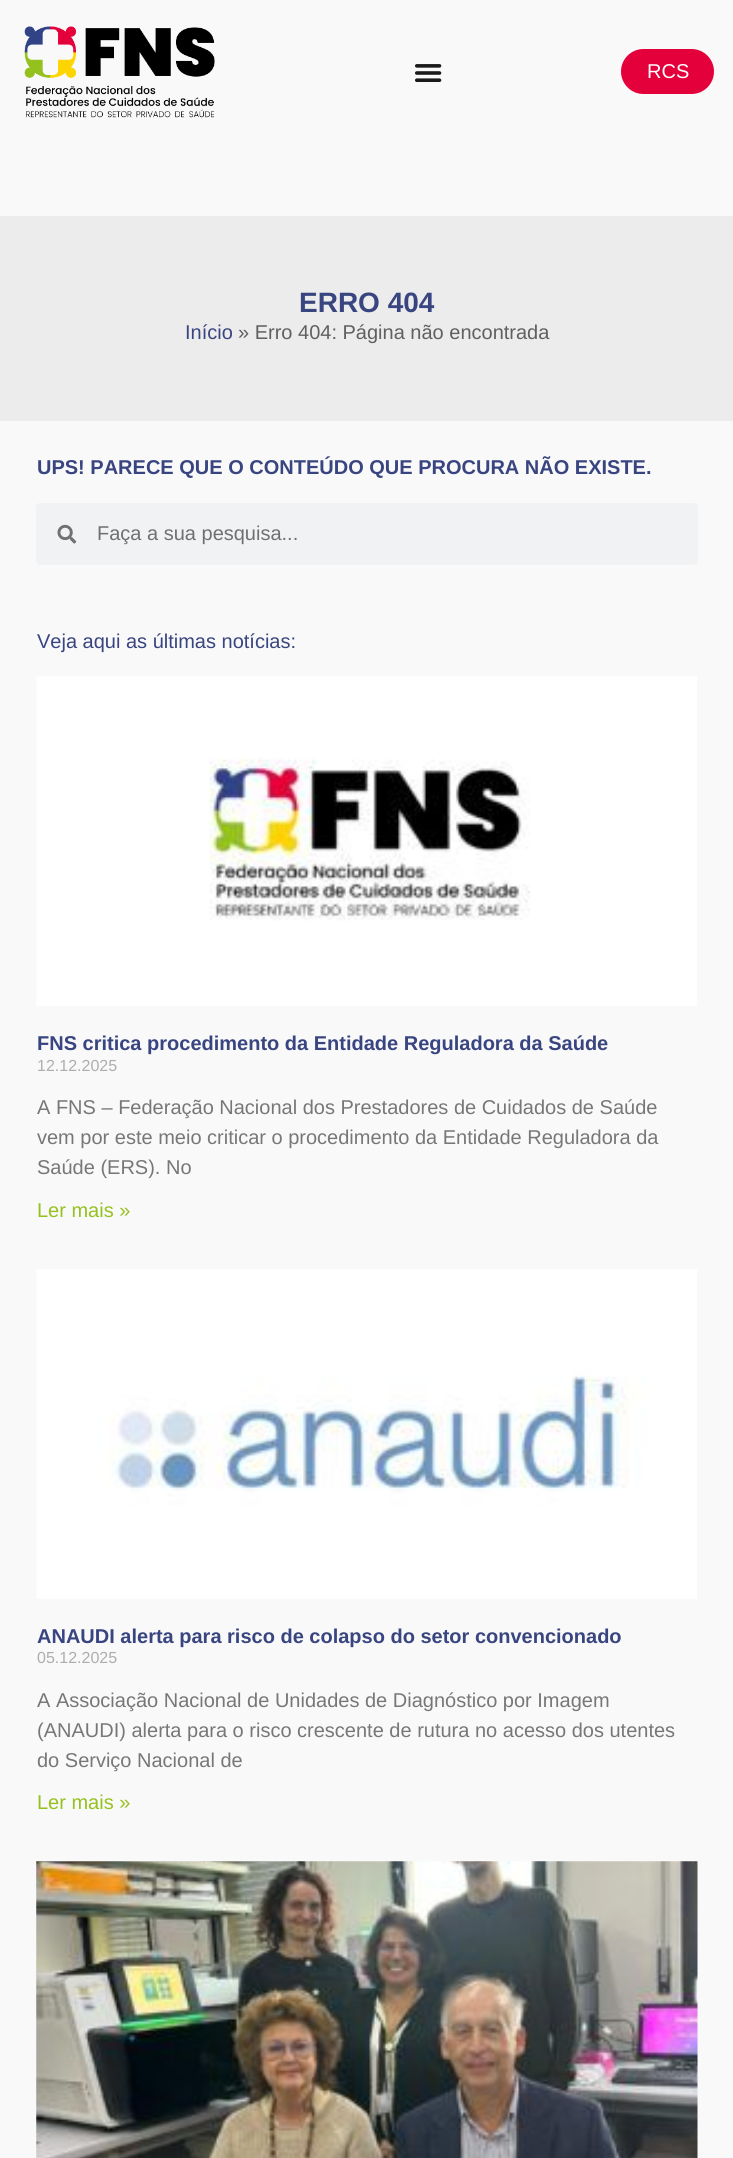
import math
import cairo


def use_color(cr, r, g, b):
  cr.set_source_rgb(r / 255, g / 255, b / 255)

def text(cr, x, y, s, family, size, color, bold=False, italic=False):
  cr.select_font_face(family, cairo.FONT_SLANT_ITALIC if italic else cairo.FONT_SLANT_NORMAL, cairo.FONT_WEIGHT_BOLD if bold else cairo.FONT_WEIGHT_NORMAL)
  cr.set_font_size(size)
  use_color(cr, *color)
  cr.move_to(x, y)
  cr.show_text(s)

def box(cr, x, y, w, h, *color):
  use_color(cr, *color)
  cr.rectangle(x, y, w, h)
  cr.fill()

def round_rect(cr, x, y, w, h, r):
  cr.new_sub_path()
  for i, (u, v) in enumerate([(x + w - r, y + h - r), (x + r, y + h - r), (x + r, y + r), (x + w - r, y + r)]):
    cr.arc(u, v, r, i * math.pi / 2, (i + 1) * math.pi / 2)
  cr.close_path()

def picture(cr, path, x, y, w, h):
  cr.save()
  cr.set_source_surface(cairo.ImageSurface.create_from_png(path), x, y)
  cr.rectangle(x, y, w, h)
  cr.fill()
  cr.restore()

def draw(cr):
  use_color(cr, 249, 249, 249)
  cr.paint()
  picture(cr, "img_01.png", 24, 26, 191, 92)
  picture(cr, "img_02.png", 415, 64, 27, 18)
  use_color(cr, 228, 0, 58)
  round_rect(cr, 621, 49, 93, 45, 22.5)
  cr.fill()
  box(cr, 0, 216, 733, 205, 236, 236, 236)
  use_color(cr, 241, 242, 243)
  round_rect(cr, 36, 503, 662, 62, 4)
  cr.fill()
  picture(cr, "img_03.png", 57, 524, 20, 20)
  picture(cr, "img_04.png", 36, 676, 661, 330)
  picture(cr, "img_05.png", 36, 1269, 661, 330)
  picture(cr, "img_06.png", 36, 1861, 662, 297)
  text(cr, 647, 78, "RCS", "Liberation Sans", 20, (255, 255, 255))
  text(cr, 299, 312, "ERRO 404", "Liberation Sans", 28, (57, 69, 128), bold=True)
  text(cr, 185, 339, "Início", "Liberation Sans", 20, (57, 69, 128))
  text(cr, 238, 339, "» Erro 404: Página não encontrada", "Liberation Sans", 20, (96, 96, 96))
  text(cr, 37, 474, "UPS! PARECE QUE O CONTEÚDO QUE PROCURA NÃO EXISTE.", "Liberation Sans", 20, (57, 69, 128), bold=True)
  text(cr, 97, 540, "Faça a sua pesquisa...", "Liberation Sans", 20, (112, 112, 113))
  text(cr, 37, 648, "Veja aqui as últimas notícias:", "Liberation Sans", 20, (57, 69, 128))
  text(cr, 37, 1050, "FNS critica procedimento da Entidade Reguladora da Saúde", "Liberation Sans", 20, (57, 69, 128), bold=True)
  text(cr, 37, 1071, "12.12.2025", "Liberation Sans", 16, (173, 173, 173))
  text(cr, 37, 1114, "A FNS – Federação Nacional dos Prestadores de Cuidados de Saúde", "Liberation Sans", 20, (119, 119, 119))
  text(cr, 37, 1144, "vem por este meio criticar o procedimento da Entidade Reguladora da", "Liberation Sans", 20, (119, 119, 119))
  text(cr, 37, 1174, "Saúde (ERS). No", "Liberation Sans", 20, (119, 119, 119))
  text(cr, 37, 1217, "Ler mais »", "Liberation Sans", 20, (149, 193, 31))
  text(cr, 37, 1643, "ANAUDI alerta para risco de colapso do setor convencionado", "Liberation Sans", 20, (57, 69, 128), bold=True)
  text(cr, 37, 1663, "05.12.2025", "Liberation Sans", 16, (173, 173, 173))
  text(cr, 37, 1707, "A Associação Nacional de Unidades de Diagnóstico por Imagem", "Liberation Sans", 20, (119, 119, 119))
  text(cr, 37, 1737, "(ANAUDI) alerta para o risco crescente de rutura no acesso dos utentes", "Liberation Sans", 20, (119, 119, 119))
  text(cr, 37, 1767, "do Serviço Nacional de", "Liberation Sans", 20, (119, 119, 119))
  text(cr, 37, 1809, "Ler mais »", "Liberation Sans", 20, (149, 193, 31))


surface = cairo.ImageSurface(cairo.FORMAT_RGB24, 733, 2158)
cr = cairo.Context(surface)
options = cairo.FontOptions()
options.set_hint_metrics(cairo.HINT_METRICS_OFF)
options.set_hint_style(cairo.HINT_STYLE_NONE)
cr.set_font_options(options)
cr.set_miter_limit(4)
draw(cr)
surface.write_to_png("out.png")
